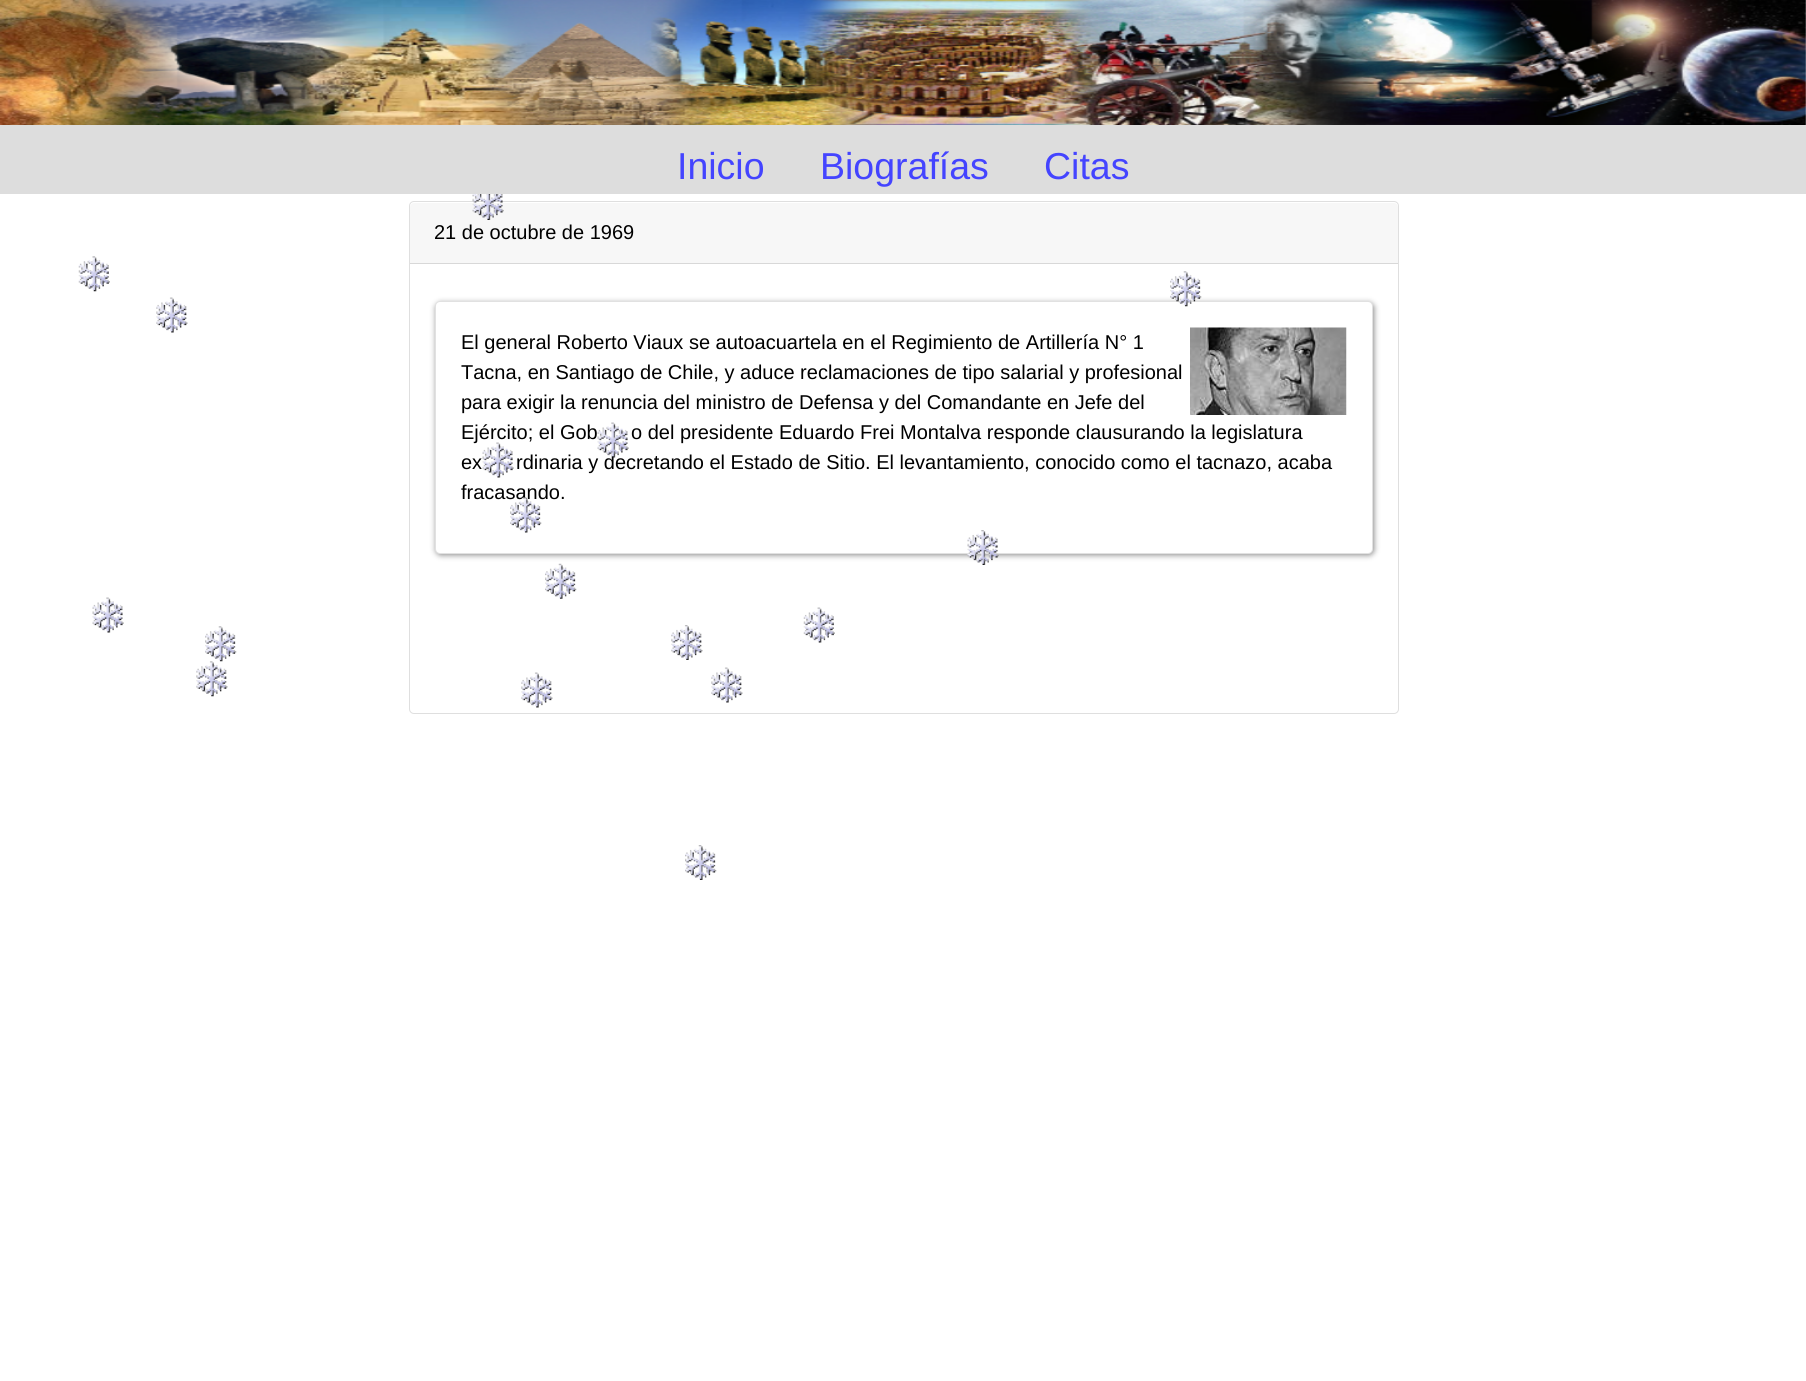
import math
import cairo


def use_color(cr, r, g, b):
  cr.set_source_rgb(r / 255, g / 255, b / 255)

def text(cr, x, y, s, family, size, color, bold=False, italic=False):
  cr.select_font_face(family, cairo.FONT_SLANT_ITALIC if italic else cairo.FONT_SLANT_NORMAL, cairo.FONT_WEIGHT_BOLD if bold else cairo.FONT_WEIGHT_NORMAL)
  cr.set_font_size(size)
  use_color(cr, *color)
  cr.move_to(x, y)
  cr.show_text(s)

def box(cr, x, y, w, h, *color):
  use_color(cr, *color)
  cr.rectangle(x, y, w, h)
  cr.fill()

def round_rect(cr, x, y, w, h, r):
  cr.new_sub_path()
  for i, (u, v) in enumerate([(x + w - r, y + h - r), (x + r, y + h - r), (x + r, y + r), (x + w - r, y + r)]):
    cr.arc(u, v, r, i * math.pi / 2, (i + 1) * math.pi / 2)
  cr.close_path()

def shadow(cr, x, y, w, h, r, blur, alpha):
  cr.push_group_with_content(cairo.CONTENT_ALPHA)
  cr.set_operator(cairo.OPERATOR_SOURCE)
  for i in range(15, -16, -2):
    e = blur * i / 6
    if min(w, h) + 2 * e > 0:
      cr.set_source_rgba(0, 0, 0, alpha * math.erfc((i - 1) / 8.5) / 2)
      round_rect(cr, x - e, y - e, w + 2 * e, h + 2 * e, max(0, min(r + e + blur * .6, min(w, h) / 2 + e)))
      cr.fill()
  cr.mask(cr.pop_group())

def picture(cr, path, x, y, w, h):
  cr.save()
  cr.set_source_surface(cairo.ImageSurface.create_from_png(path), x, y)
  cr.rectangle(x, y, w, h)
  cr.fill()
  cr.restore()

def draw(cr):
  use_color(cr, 255, 255, 255)
  cr.paint()
  picture(cr, "img_01.png", 0, 0, 1806, 125)
  box(cr, 0, 125, 1806, 69, 221, 221, 221)
  round_rect(cr, 409.5, 201.5, 989, 512, 4.5)
  use_color(cr, 223, 223, 223)
  cr.set_line_width(1)
  cr.stroke()
  use_color(cr, 247, 247, 247)
  cr.new_path()
  cr.move_to(414, 203)
  cr.line_to(1394, 203)
  cr.curve_to(1396, 203, 1398, 205, 1398, 207)
  cr.line_to(1398, 264)
  cr.line_to(410, 264)
  cr.line_to(410, 207)
  cr.curve_to(410, 205, 412, 203, 414, 203)
  cr.close_path()
  cr.fill()
  picture(cr, "img_02.png", 472, 194, 32, 26)
  picture(cr, "img_03.png", 78, 256, 32, 36)
  box(cr, 410, 263, 988, 1, 216, 216, 216)
  use_color(cr, 136, 136, 136)
  shadow(cr, 436, 303, 938, 252, 5, 3, 1)
  use_color(cr, 255, 255, 255)
  round_rect(cr, 435, 301, 938, 253, 5)
  cr.fill()
  round_rect(cr, 435.5, 301.5, 937, 252, 4.5)
  cr.set_source_rgba(0, 0, 0, 0.12)
  cr.stroke()
  picture(cr, "img_04.png", 1190, 327, 157, 88)
  picture(cr, "img_05.png", 1170, 271, 32, 36)
  picture(cr, "img_06.png", 156, 297, 32, 36)
  picture(cr, "img_10.png", 967, 530, 32, 35)
  picture(cr, "img_11.png", 545, 563, 32, 36)
  picture(cr, "img_12.png", 92, 597, 32, 36)
  picture(cr, "img_13.png", 205, 626, 32, 36)
  picture(cr, "img_14.png", 671, 625, 32, 35)
  picture(cr, "img_15.png", 803, 607, 32, 36)
  picture(cr, "img_16.png", 196, 661, 32, 36)
  picture(cr, "img_06.png", 521, 672, 32, 36)
  picture(cr, "img_06.png", 711, 667, 32, 36)
  picture(cr, "img_17.png", 685, 845, 32, 35)
  text(cr, 677, 179, "Inicio", "Liberation Sans", 37.5, (68, 68, 255))
  text(cr, 820, 179, "Biografías", "Liberation Sans", 37.5, (68, 68, 255))
  text(cr, 1044, 179, "Citas", "Liberation Sans", 37.5, (68, 68, 255))
  text(cr, 434, 239, "21 de octubre de 1969", "Liberation Sans", 20, (0, 0, 0))
  text(cr, 461, 349, "El general Roberto Viaux se autoacuartela en el Regimiento de Artillería N° 1", "Liberation Sans", 20, (0, 0, 0))
  text(cr, 461, 379, "Tacna, en Santiago de Chile, y aduce reclamaciones de tipo salarial y profesional", "Liberation Sans", 20, (0, 0, 0))
  text(cr, 461, 409, "para exigir la renuncia del ministro de Defensa y del Comandante en Jefe del", "Liberation Sans", 20, (0, 0, 0))
  text(cr, 461, 439, "Ejército; el Gob", "Liberation Sans", 20, (0, 0, 0))
  text(cr, 631, 439, "o del presidente Eduardo Frei Montalva responde clausurando la legislatura", "Liberation Sans", 20, (0, 0, 0))
  text(cr, 461, 469, "ex", "Liberation Sans", 20, (0, 0, 0))
  text(cr, 516, 469, "rdinaria y decretando el Estado de Sitio. El levantamiento, conocido como el tacnazo, acaba", "Liberation Sans", 20, (0, 0, 0))
  text(cr, 461, 499, "fracasando.", "Liberation Sans", 20, (0, 0, 0))
  picture(cr, "img_07.png", 482, 442, 32, 36)
  picture(cr, "img_08.png", 597, 422, 32, 36)
  picture(cr, "img_09.png", 510, 497, 32, 36)


surface = cairo.ImageSurface(cairo.FORMAT_RGB24, 1806, 1381)
cr = cairo.Context(surface)
options = cairo.FontOptions()
options.set_hint_metrics(cairo.HINT_METRICS_OFF)
options.set_hint_style(cairo.HINT_STYLE_NONE)
cr.set_font_options(options)
cr.set_miter_limit(4)
draw(cr)
surface.write_to_png("out.png")
